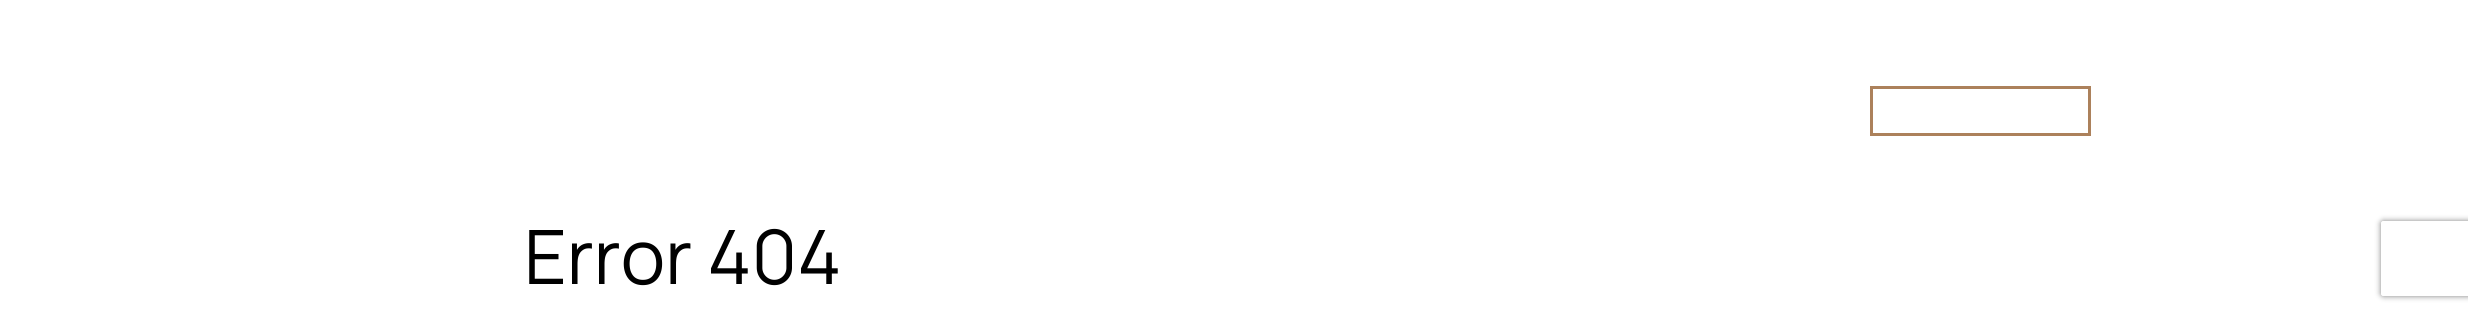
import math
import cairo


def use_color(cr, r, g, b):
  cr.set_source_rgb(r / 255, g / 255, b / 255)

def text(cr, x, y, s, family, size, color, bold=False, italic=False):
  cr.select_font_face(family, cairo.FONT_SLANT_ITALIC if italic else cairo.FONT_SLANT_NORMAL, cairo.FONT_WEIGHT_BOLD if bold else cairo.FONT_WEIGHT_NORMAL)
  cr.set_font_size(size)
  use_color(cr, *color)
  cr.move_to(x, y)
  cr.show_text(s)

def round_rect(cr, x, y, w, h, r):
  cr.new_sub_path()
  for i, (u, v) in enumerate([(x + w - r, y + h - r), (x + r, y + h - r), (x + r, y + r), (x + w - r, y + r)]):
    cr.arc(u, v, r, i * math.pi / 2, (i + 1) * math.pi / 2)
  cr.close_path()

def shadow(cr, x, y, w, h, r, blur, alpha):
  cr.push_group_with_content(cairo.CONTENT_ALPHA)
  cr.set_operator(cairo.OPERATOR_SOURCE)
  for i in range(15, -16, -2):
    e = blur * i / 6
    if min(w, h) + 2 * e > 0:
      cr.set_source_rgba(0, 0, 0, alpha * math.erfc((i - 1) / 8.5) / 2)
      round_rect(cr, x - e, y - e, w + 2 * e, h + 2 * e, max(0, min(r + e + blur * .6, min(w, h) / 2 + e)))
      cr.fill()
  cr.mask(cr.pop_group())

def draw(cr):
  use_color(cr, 255, 255, 255)
  cr.paint()
  cr.rectangle(1871.5, 87.5, 218, 47)
  use_color(cr, 172, 129, 91)
  cr.set_line_width(3)
  cr.stroke()
  cr.save()
  cr.set_fill_rule(cairo.FILL_RULE_EVEN_ODD)
  cr.new_path()
  cr.move_to(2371, 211)
  cr.line_to(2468, 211)
  cr.line_to(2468, 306)
  cr.line_to(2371, 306)
  cr.close_path()
  cr.move_to(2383.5, 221)
  cr.line_to(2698.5, 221)
  cr.curve_to(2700, 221, 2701, 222, 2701, 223.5)
  cr.line_to(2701, 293.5)
  cr.curve_to(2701, 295, 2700, 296, 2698.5, 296)
  cr.line_to(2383.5, 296)
  cr.curve_to(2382, 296, 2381, 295, 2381, 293.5)
  cr.line_to(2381, 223.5)
  cr.curve_to(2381, 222, 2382, 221, 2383.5, 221)
  cr.close_path()
  cr.clip()
  use_color(cr, 128, 128, 128)
  shadow(cr, 2381, 221, 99, 75, 2.5, 3, 1)
  cr.restore()
  text(cr, 524, 284, "Error 404", "Manrope", 75, (0, 0, 0))


surface = cairo.ImageSurface(cairo.FORMAT_RGB24, 2468, 313)
cr = cairo.Context(surface)
options = cairo.FontOptions()
options.set_hint_metrics(cairo.HINT_METRICS_OFF)
options.set_hint_style(cairo.HINT_STYLE_NONE)
cr.set_font_options(options)
cr.set_miter_limit(4)
draw(cr)
surface.write_to_png("out.png")
